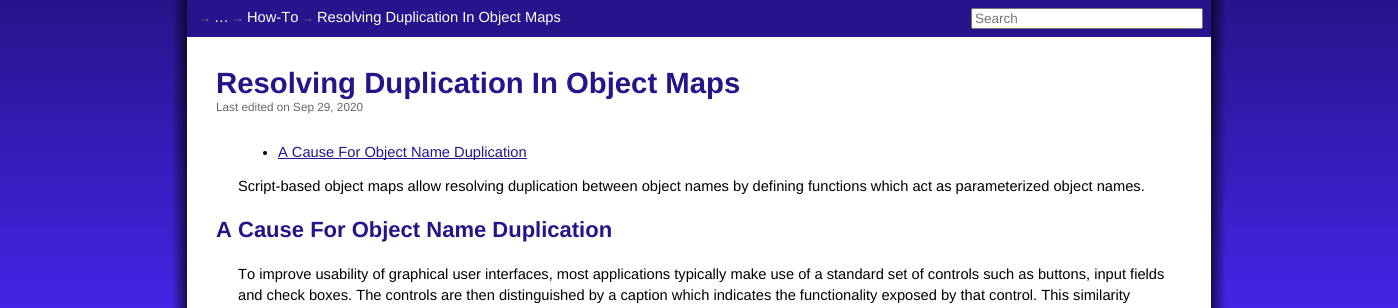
import math
import cairo


def use_color(cr, r, g, b):
  cr.set_source_rgb(r / 255, g / 255, b / 255)

def text(cr, x, y, s, family, size, color, bold=False, italic=False):
  cr.select_font_face(family, cairo.FONT_SLANT_ITALIC if italic else cairo.FONT_SLANT_NORMAL, cairo.FONT_WEIGHT_BOLD if bold else cairo.FONT_WEIGHT_NORMAL)
  cr.set_font_size(size)
  use_color(cr, *color)
  cr.move_to(x, y)
  cr.show_text(s)

def box(cr, x, y, w, h, *color):
  use_color(cr, *color)
  cr.rectangle(x, y, w, h)
  cr.fill()

def round_rect(cr, x, y, w, h, r):
  cr.new_sub_path()
  for i, (u, v) in enumerate([(x + w - r, y + h - r), (x + r, y + h - r), (x + r, y + r), (x + w - r, y + r)]):
    cr.arc(u, v, r, i * math.pi / 2, (i + 1) * math.pi / 2)
  cr.close_path()

def draw(cr):
  use_color(cr, 255, 255, 255)
  cr.paint()
  gradient = cairo.LinearGradient(699, 0, 699, 308)
  gradient.add_color_stop_rgba(0, 0.153, 0.075, 0.545, 1)
  gradient.add_color_stop_rgba(1, 0.267, 0.141, 0.898, 1)
  cr.set_source(gradient)
  cr.rectangle(0, 0, 1398, 308)
  cr.fill()
  box(cr, 187, 37, 1024, 271, 255, 255, 255)
  gradient = cairo.LinearGradient(172, 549, 187, 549)
  gradient.add_color_stop_rgba(0, 0, 0, 0, 0)
  gradient.add_color_stop_rgba(1, 0, 0, 0, 0.63)
  cr.set_source(gradient)
  cr.rectangle(173, 0, 14, 308)
  cr.fill()
  box(cr, 187, 9, 1024, 28, 39, 19, 139)
  use_color(cr, 255, 255, 255)
  round_rect(cr, 971.5, 8.5, 231, 20, 1.5)
  cr.fill_preserve()
  use_color(cr, 118, 118, 118)
  cr.set_line_width(1)
  cr.stroke()
  gradient = cairo.LinearGradient(1226, 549, 1211, 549)
  gradient.add_color_stop_rgba(0, 0, 0, 0, 0)
  gradient.add_color_stop_rgba(1, 0, 0, 0, 0.63)
  cr.set_source(gradient)
  cr.rectangle(1211, 0, 14, 308)
  cr.fill()
  use_color(cr, 0, 0, 0)
  cr.arc(265, 153, 2, 0, 2 * math.pi)
  cr.fill()
  box(cr, 278, 158, 249, 1, 39, 19, 139)
  text(cr, 199, 22, "→", "Liberation Sans", 11.75, (128, 128, 128))
  text(cr, 214, 22, "…", "Liberation Sans", 14.67, (255, 255, 255))
  text(cr, 232, 22, "→", "Liberation Sans", 11.75, (128, 128, 128))
  text(cr, 247, 22, "How-To", "Liberation Sans", 14.67, (255, 255, 255))
  text(cr, 302, 22, "→", "Liberation Sans", 11.75, (128, 128, 128))
  text(cr, 317, 22, "Resolving Duplication In Object Maps", "Liberation Sans", 14.67, (255, 255, 255))
  text(cr, 975, 23, "Search", "Liberation Sans", 13.5, (117, 117, 117))
  text(cr, 216, 93, "Resolving Duplication In Object Maps", "Liberation Sans", 29.3, (39, 19, 139), bold=True)
  text(cr, 216, 111, "Last edited on Sep 29, 2020", "Liberation Sans", 11.75, (102, 102, 102))
  text(cr, 278, 157, "A Cause For Object Name Duplication", "Liberation Sans", 14.67, (39, 19, 139))
  text(cr, 238, 191, "Script-based object maps allow resolving duplication between object names by defining functions which act as parameterized object names.", "Liberation Sans", 14.67, (0, 0, 0))
  text(cr, 216, 237, "A Cause For Object Name Duplication", "Liberation Sans", 22, (39, 19, 139), bold=True)
  text(cr, 238, 279, "To improve usability of graphical user interfaces, most applications typically make use of a standard set of controls such as buttons, input fields", "Liberation Sans", 14.67, (0, 0, 0))
  text(cr, 238, 300, "and check boxes. The controls are then distinguished by a caption which indicates the functionality exposed by that control. This similarity", "Liberation Sans", 14.67, (0, 0, 0))


surface = cairo.ImageSurface(cairo.FORMAT_RGB24, 1398, 308)
cr = cairo.Context(surface)
options = cairo.FontOptions()
options.set_hint_metrics(cairo.HINT_METRICS_OFF)
options.set_hint_style(cairo.HINT_STYLE_NONE)
cr.set_font_options(options)
cr.set_miter_limit(4)
draw(cr)
surface.write_to_png("out.png")
